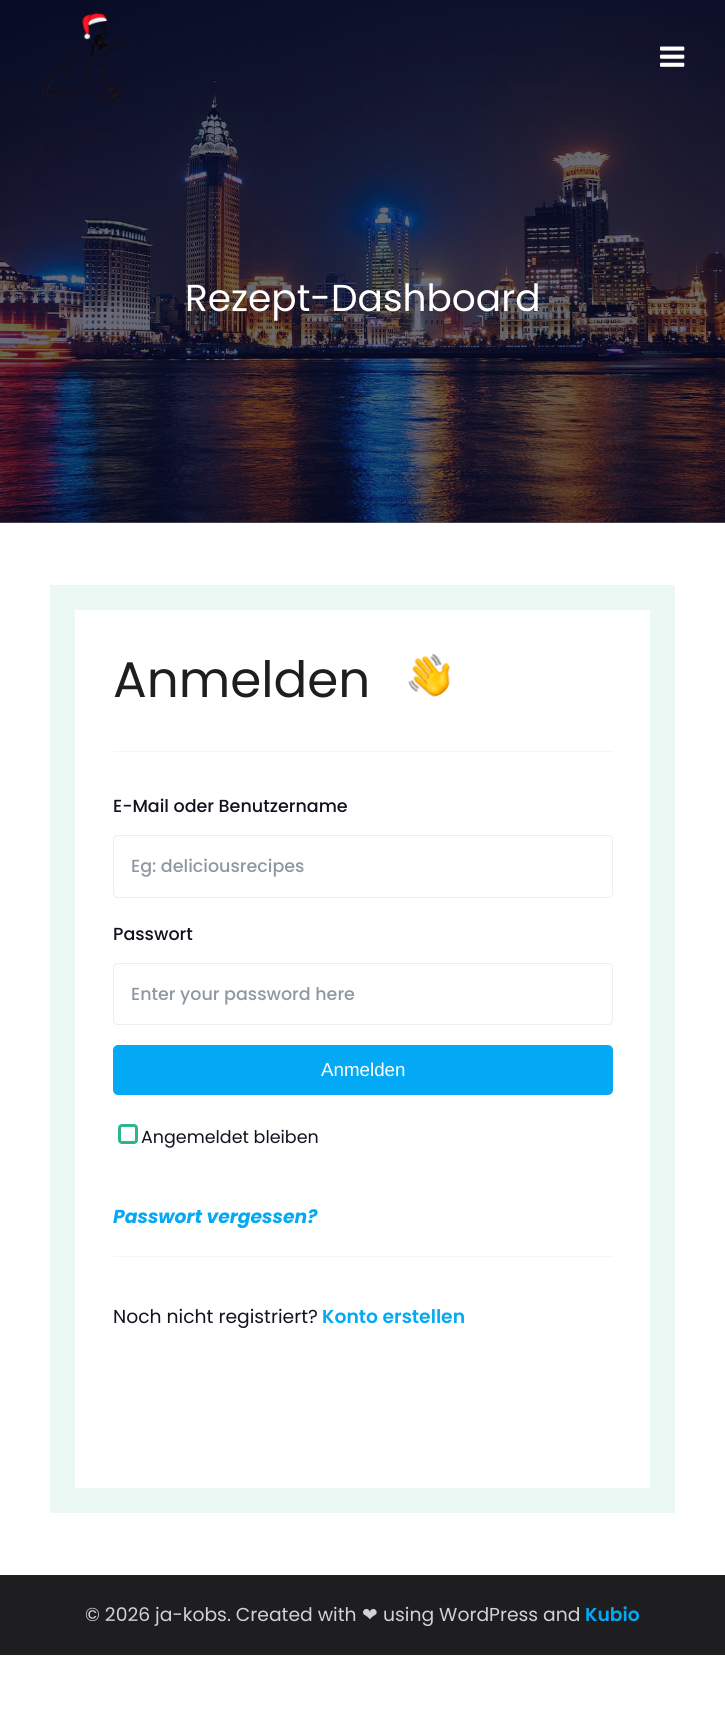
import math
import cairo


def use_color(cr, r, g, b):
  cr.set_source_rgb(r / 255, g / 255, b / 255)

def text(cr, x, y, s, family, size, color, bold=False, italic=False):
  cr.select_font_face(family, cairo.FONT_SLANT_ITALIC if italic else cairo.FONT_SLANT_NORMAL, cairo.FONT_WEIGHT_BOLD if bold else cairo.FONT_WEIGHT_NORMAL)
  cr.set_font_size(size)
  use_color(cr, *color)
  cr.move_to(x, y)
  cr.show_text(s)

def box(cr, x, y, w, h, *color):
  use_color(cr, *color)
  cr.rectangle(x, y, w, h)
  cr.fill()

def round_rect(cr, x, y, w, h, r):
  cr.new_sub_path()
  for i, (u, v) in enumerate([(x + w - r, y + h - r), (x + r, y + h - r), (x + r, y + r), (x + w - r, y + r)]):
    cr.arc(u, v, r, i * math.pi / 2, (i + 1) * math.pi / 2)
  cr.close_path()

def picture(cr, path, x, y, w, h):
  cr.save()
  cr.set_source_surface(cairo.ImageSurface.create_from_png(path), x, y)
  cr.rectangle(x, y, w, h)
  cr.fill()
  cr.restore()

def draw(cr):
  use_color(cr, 255, 255, 255)
  cr.paint()
  box(cr, 0, 522, 725, 1, 107, 107, 121)
  picture(cr, "img_03.png", 0, 0, 725, 523)
  picture(cr, "img_01.png", 42, 12, 83, 88)
  picture(cr, "img_02.png", 660, 46, 25, 21)
  box(cr, 50, 585, 625, 928, 235, 248, 244)
  box(cr, 75, 610, 575, 878, 255, 255, 255)
  box(cr, 113, 751, 500, 1, 245, 246, 247)
  picture(cr, "img_04.png", 408, 654, 42, 43)
  round_rect(cr, 113.5, 835.5, 499, 62, 4.5)
  use_color(cr, 235, 237, 238)
  cr.set_line_width(1)
  cr.stroke()
  round_rect(cr, 113.5, 963.5, 499, 61, 4.5)
  cr.stroke()
  use_color(cr, 3, 169, 244)
  round_rect(cr, 114.5, 1046.5, 497, 47, 3.5)
  cr.fill_preserve()
  cr.set_line_width(3)
  cr.stroke()
  round_rect(cr, 119.5, 1125.5, 17, 17, 2.5)
  use_color(cr, 45, 182, 141)
  cr.stroke()
  box(cr, 113, 1256, 500, 1, 245, 246, 247)
  box(cr, 0, 1575, 725, 80, 30, 30, 32)
  text(cr, 185, 311, "Rezept-Dashboard", "Poppins", 37.5, (255, 255, 255))
  text(cr, 113, 697, "Anmelden", "Poppins", 50, (30, 30, 32))
  text(cr, 113, 812, "E-Mail oder Benutzername", "Poppins Medium", 17.5, (19, 19, 31))
  text(cr, 131, 872, "Eg: deliciousrecipes", "Poppins Medium", 17.5, (143, 152, 161))
  text(cr, 113, 940, "Passwort", "Poppins Medium", 17.5, (19, 19, 31))
  text(cr, 131, 1000, "Enter your password here", "Poppins Medium", 17.5, (143, 152, 161))
  text(cr, 321, 1076, "Anmelden", "Liberation Sans", 18.75, (255, 255, 255))
  text(cr, 141, 1143, "Angemeldet bleiben", "Poppins", 17.5, (19, 19, 31))
  text(cr, 113, 1223, "Passwort vergessen?", "Poppins", 18.75, (3, 169, 244), bold=True, italic=True)
  text(cr, 113, 1323, "Noch nicht registriert?", "Poppins", 18.75, (19, 19, 31))
  text(cr, 322, 1323, "Konto erstellen", "Poppins SemiBold", 18.75, (3, 169, 244))
  text(cr, 85, 1621, "© 2026 ja-kobs. Created with", "Poppins", 18.75, (210, 210, 210))
  text(cr, 362, 1621, "❤", "DejaVu Sans", 18.75, (210, 210, 210))
  text(cr, 383, 1621, "using WordPress and", "Poppins", 18.75, (210, 210, 210))
  text(cr, 585, 1621, "Kubio", "Poppins SemiBold", 18.75, (3, 169, 244))


surface = cairo.ImageSurface(cairo.FORMAT_RGB24, 725, 1736)
cr = cairo.Context(surface)
options = cairo.FontOptions()
options.set_hint_metrics(cairo.HINT_METRICS_OFF)
options.set_hint_style(cairo.HINT_STYLE_NONE)
cr.set_font_options(options)
cr.set_miter_limit(4)
draw(cr)
surface.write_to_png("out.png")
